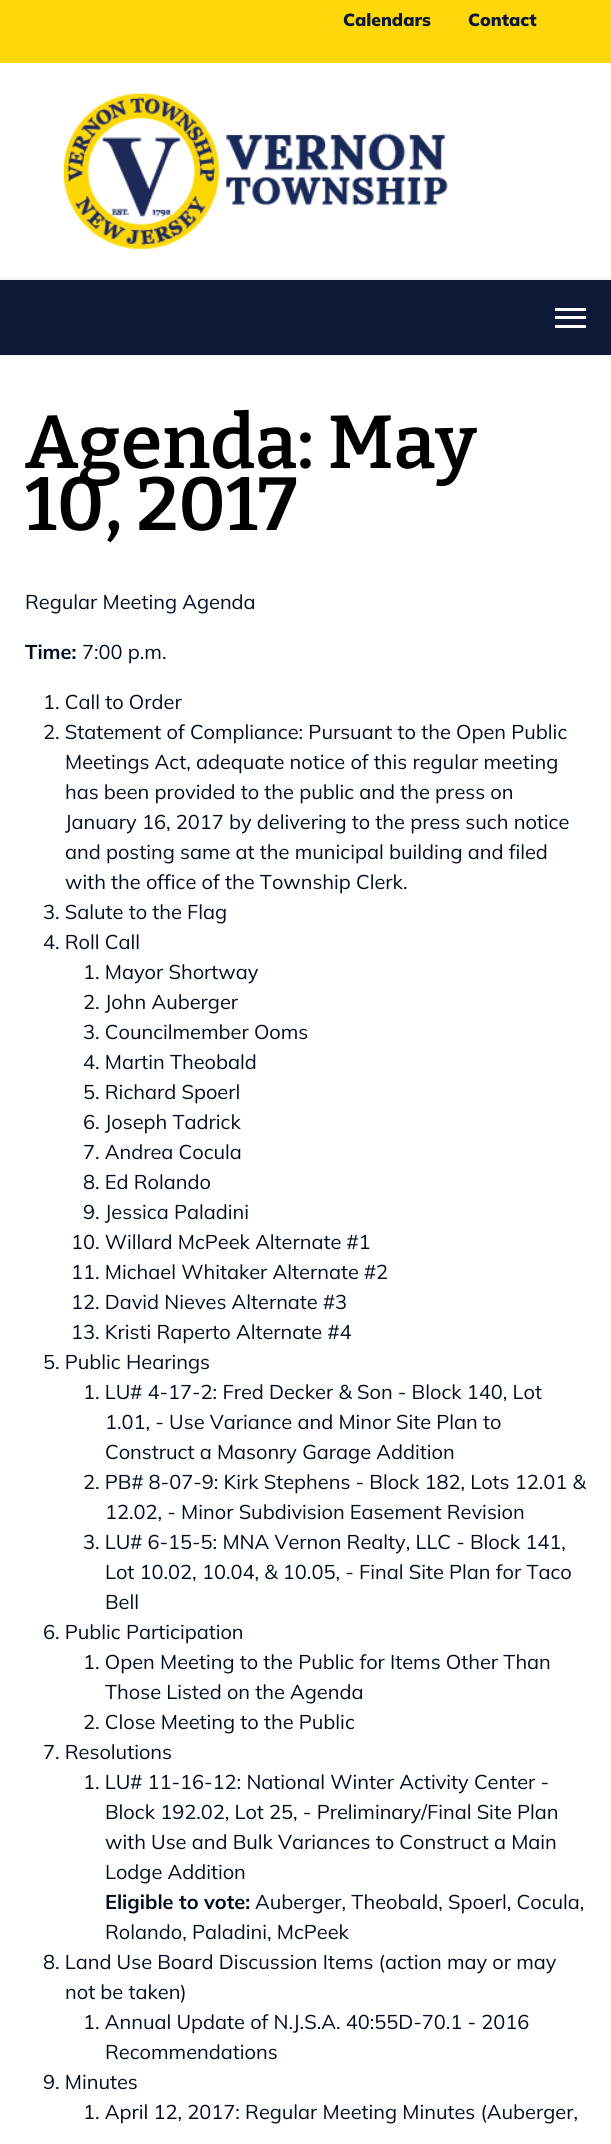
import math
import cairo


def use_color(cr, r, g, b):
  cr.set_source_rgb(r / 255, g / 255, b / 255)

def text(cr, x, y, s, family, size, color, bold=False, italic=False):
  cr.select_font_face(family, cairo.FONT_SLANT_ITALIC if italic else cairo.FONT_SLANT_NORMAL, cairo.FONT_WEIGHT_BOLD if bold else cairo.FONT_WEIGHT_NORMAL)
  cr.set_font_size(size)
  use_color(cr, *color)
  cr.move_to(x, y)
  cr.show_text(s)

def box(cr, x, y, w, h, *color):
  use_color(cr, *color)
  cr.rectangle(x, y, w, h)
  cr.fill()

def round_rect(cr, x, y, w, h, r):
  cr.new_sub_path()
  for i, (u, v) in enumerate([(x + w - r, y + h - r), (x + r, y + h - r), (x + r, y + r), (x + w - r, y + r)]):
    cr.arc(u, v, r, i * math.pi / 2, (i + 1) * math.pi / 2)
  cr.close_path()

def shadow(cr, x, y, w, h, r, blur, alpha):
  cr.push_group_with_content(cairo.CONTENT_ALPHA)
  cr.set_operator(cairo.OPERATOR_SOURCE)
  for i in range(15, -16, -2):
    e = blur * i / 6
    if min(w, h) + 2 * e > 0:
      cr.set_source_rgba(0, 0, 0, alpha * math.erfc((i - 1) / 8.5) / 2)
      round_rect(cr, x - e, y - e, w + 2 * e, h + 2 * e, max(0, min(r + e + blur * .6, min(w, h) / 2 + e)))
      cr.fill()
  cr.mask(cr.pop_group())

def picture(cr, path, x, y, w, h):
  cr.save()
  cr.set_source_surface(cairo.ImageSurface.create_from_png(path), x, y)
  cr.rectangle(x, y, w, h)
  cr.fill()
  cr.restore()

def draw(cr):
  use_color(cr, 255, 255, 255)
  cr.paint()
  box(cr, 0, 0, 611, 63, 253, 215, 7)
  picture(cr, "img_01.png", 63, 93, 385, 156)
  use_color(cr, 0, 0, 0)
  shadow(cr, 0, 280, 611, 75, 0, 2.5, 0.1)
  box(cr, 0, 280, 611, 75, 14, 24, 55)
  box(cr, 555, 308, 31, 3, 255, 255, 255)
  box(cr, 555, 316, 31, 3, 255, 255, 255)
  box(cr, 555, 325, 31, 3, 255, 255, 255)
  text(cr, 343, 26, "Calendars", "Mulish Black", 17.5, (14, 24, 55))
  text(cr, 468, 26, "Contact", "Mulish Black", 17.5, (14, 24, 55))
  text(cr, 25, 468, "Agenda: May", "Bitter SemiBold", 75, (0, 0, 0))
  text(cr, 25, 530, "10, 2017", "Bitter SemiBold", 75, (0, 0, 0))
  text(cr, 25, 609, "Regular Meeting Agenda", "Mulish", 20, (1, 12, 35))
  text(cr, 25, 659, "Time:", "Mulish", 20, (1, 12, 35), bold=True)
  text(cr, 82, 659, "7:00 p.m.", "Mulish", 20, (1, 12, 35))
  text(cr, 43, 709, "1. Call to Order", "Mulish", 20, (1, 12, 35))
  text(cr, 43, 739, "2. Statement of Compliance: Pursuant to the Open Public", "Mulish", 20, (1, 12, 35))
  text(cr, 65, 769, "Meetings Act, adequate notice of this regular meeting", "Mulish", 20, (1, 12, 35))
  text(cr, 65, 799, "has been provided to the public and the press on", "Mulish", 20, (1, 12, 35))
  text(cr, 65, 829, "January 16, 2017 by delivering to the press such notice", "Mulish", 20, (1, 12, 35))
  text(cr, 65, 859, "and posting same at the municipal building and filed", "Mulish", 20, (1, 12, 35))
  text(cr, 65, 889, "with the office of the Township Clerk.", "Mulish", 20, (1, 12, 35))
  text(cr, 43, 919, "3. Salute to the Flag", "Mulish", 20, (1, 12, 35))
  text(cr, 43, 949, "4. Roll Call", "Mulish", 20, (1, 12, 35))
  text(cr, 83, 979, "1. Mayor Shortway", "Mulish", 20, (1, 12, 35))
  text(cr, 83, 1009, "2. John Auberger", "Mulish", 20, (1, 12, 35))
  text(cr, 83, 1039, "3. Councilmember Ooms", "Mulish", 20, (1, 12, 35))
  text(cr, 83, 1069, "4. Martin Theobald", "Mulish", 20, (1, 12, 35))
  text(cr, 83, 1099, "5. Richard Spoerl", "Mulish", 20, (1, 12, 35))
  text(cr, 83, 1129, "6. Joseph Tadrick", "Mulish", 20, (1, 12, 35))
  text(cr, 83, 1159, "7. Andrea Cocula", "Mulish", 20, (1, 12, 35))
  text(cr, 83, 1189, "8. Ed Rolando", "Mulish", 20, (1, 12, 35))
  text(cr, 83, 1219, "9. Jessica Paladini", "Mulish", 20, (1, 12, 35))
  text(cr, 71, 1249, "10. Willard McPeek Alternate #1", "Mulish", 20, (1, 12, 35))
  text(cr, 71, 1279, "11. Michael Whitaker Alternate #2", "Mulish", 20, (1, 12, 35))
  text(cr, 71, 1309, "12. David Nieves Alternate #3", "Mulish", 20, (1, 12, 35))
  text(cr, 71, 1339, "13. Kristi Raperto Alternate #4", "Mulish", 20, (1, 12, 35))
  text(cr, 43, 1369, "5. Public Hearings", "Mulish", 20, (1, 12, 35))
  text(cr, 83, 1399, "1. LU# 4-17-2: Fred Decker & Son - Block 140, Lot", "Mulish", 20, (1, 12, 35))
  text(cr, 105, 1429, "1.01, - Use Variance and Minor Site Plan to", "Mulish", 20, (1, 12, 35))
  text(cr, 105, 1459, "Construct a Masonry Garage Addition", "Mulish", 20, (1, 12, 35))
  text(cr, 83, 1489, "2. PB# 8-07-9: Kirk Stephens - Block 182, Lots 12.01 &", "Mulish", 20, (1, 12, 35))
  text(cr, 105, 1519, "12.02, - Minor Subdivision Easement Revision", "Mulish", 20, (1, 12, 35))
  text(cr, 83, 1549, "3. LU# 6-15-5: MNA Vernon Realty, LLC - Block 141,", "Mulish", 20, (1, 12, 35))
  text(cr, 105, 1579, "Lot 10.02, 10.04, & 10.05, - Final Site Plan for Taco", "Mulish", 20, (1, 12, 35))
  text(cr, 105, 1609, "Bell", "Mulish", 20, (1, 12, 35))
  text(cr, 43, 1639, "6. Public Participation", "Mulish", 20, (1, 12, 35))
  text(cr, 83, 1669, "1. Open Meeting to the Public for Items Other Than", "Mulish", 20, (1, 12, 35))
  text(cr, 105, 1699, "Those Listed on the Agenda", "Mulish", 20, (1, 12, 35))
  text(cr, 83, 1729, "2. Close Meeting to the Public", "Mulish", 20, (1, 12, 35))
  text(cr, 43, 1759, "7. Resolutions", "Mulish", 20, (1, 12, 35))
  text(cr, 83, 1789, "1. LU# 11-16-12: National Winter Activity Center -", "Mulish", 20, (1, 12, 35))
  text(cr, 105, 1819, "Block 192.02, Lot 25, - Preliminary/Final Site Plan", "Mulish", 20, (1, 12, 35))
  text(cr, 105, 1849, "with Use and Bulk Variances to Construct a Main", "Mulish", 20, (1, 12, 35))
  text(cr, 105, 1879, "Lodge Addition", "Mulish", 20, (1, 12, 35))
  text(cr, 105, 1909, "Eligible to vote:", "Mulish", 20, (1, 12, 35), bold=True)
  text(cr, 255, 1909, "Auberger, Theobald, Spoerl, Cocula,", "Mulish", 20, (1, 12, 35))
  text(cr, 105, 1939, "Rolando, Paladini, McPeek", "Mulish", 20, (1, 12, 35))
  text(cr, 43, 1969, "8. Land Use Board Discussion Items (action may or may", "Mulish", 20, (1, 12, 35))
  text(cr, 65, 1999, "not be taken)", "Mulish", 20, (1, 12, 35))
  text(cr, 83, 2029, "1. Annual Update of N.J.S.A. 40:55D-70.1 - 2016", "Mulish", 20, (1, 12, 35))
  text(cr, 105, 2059, "Recommendations", "Mulish", 20, (1, 12, 35))
  text(cr, 43, 2089, "9. Minutes", "Mulish", 20, (1, 12, 35))
  text(cr, 83, 2119, "1. April 12, 2017: Regular Meeting Minutes (Auberger,", "Mulish", 20, (1, 12, 35))


surface = cairo.ImageSurface(cairo.FORMAT_RGB24, 611, 2144)
cr = cairo.Context(surface)
options = cairo.FontOptions()
options.set_hint_metrics(cairo.HINT_METRICS_OFF)
options.set_hint_style(cairo.HINT_STYLE_NONE)
cr.set_font_options(options)
cr.set_miter_limit(4)
draw(cr)
surface.write_to_png("out.png")
